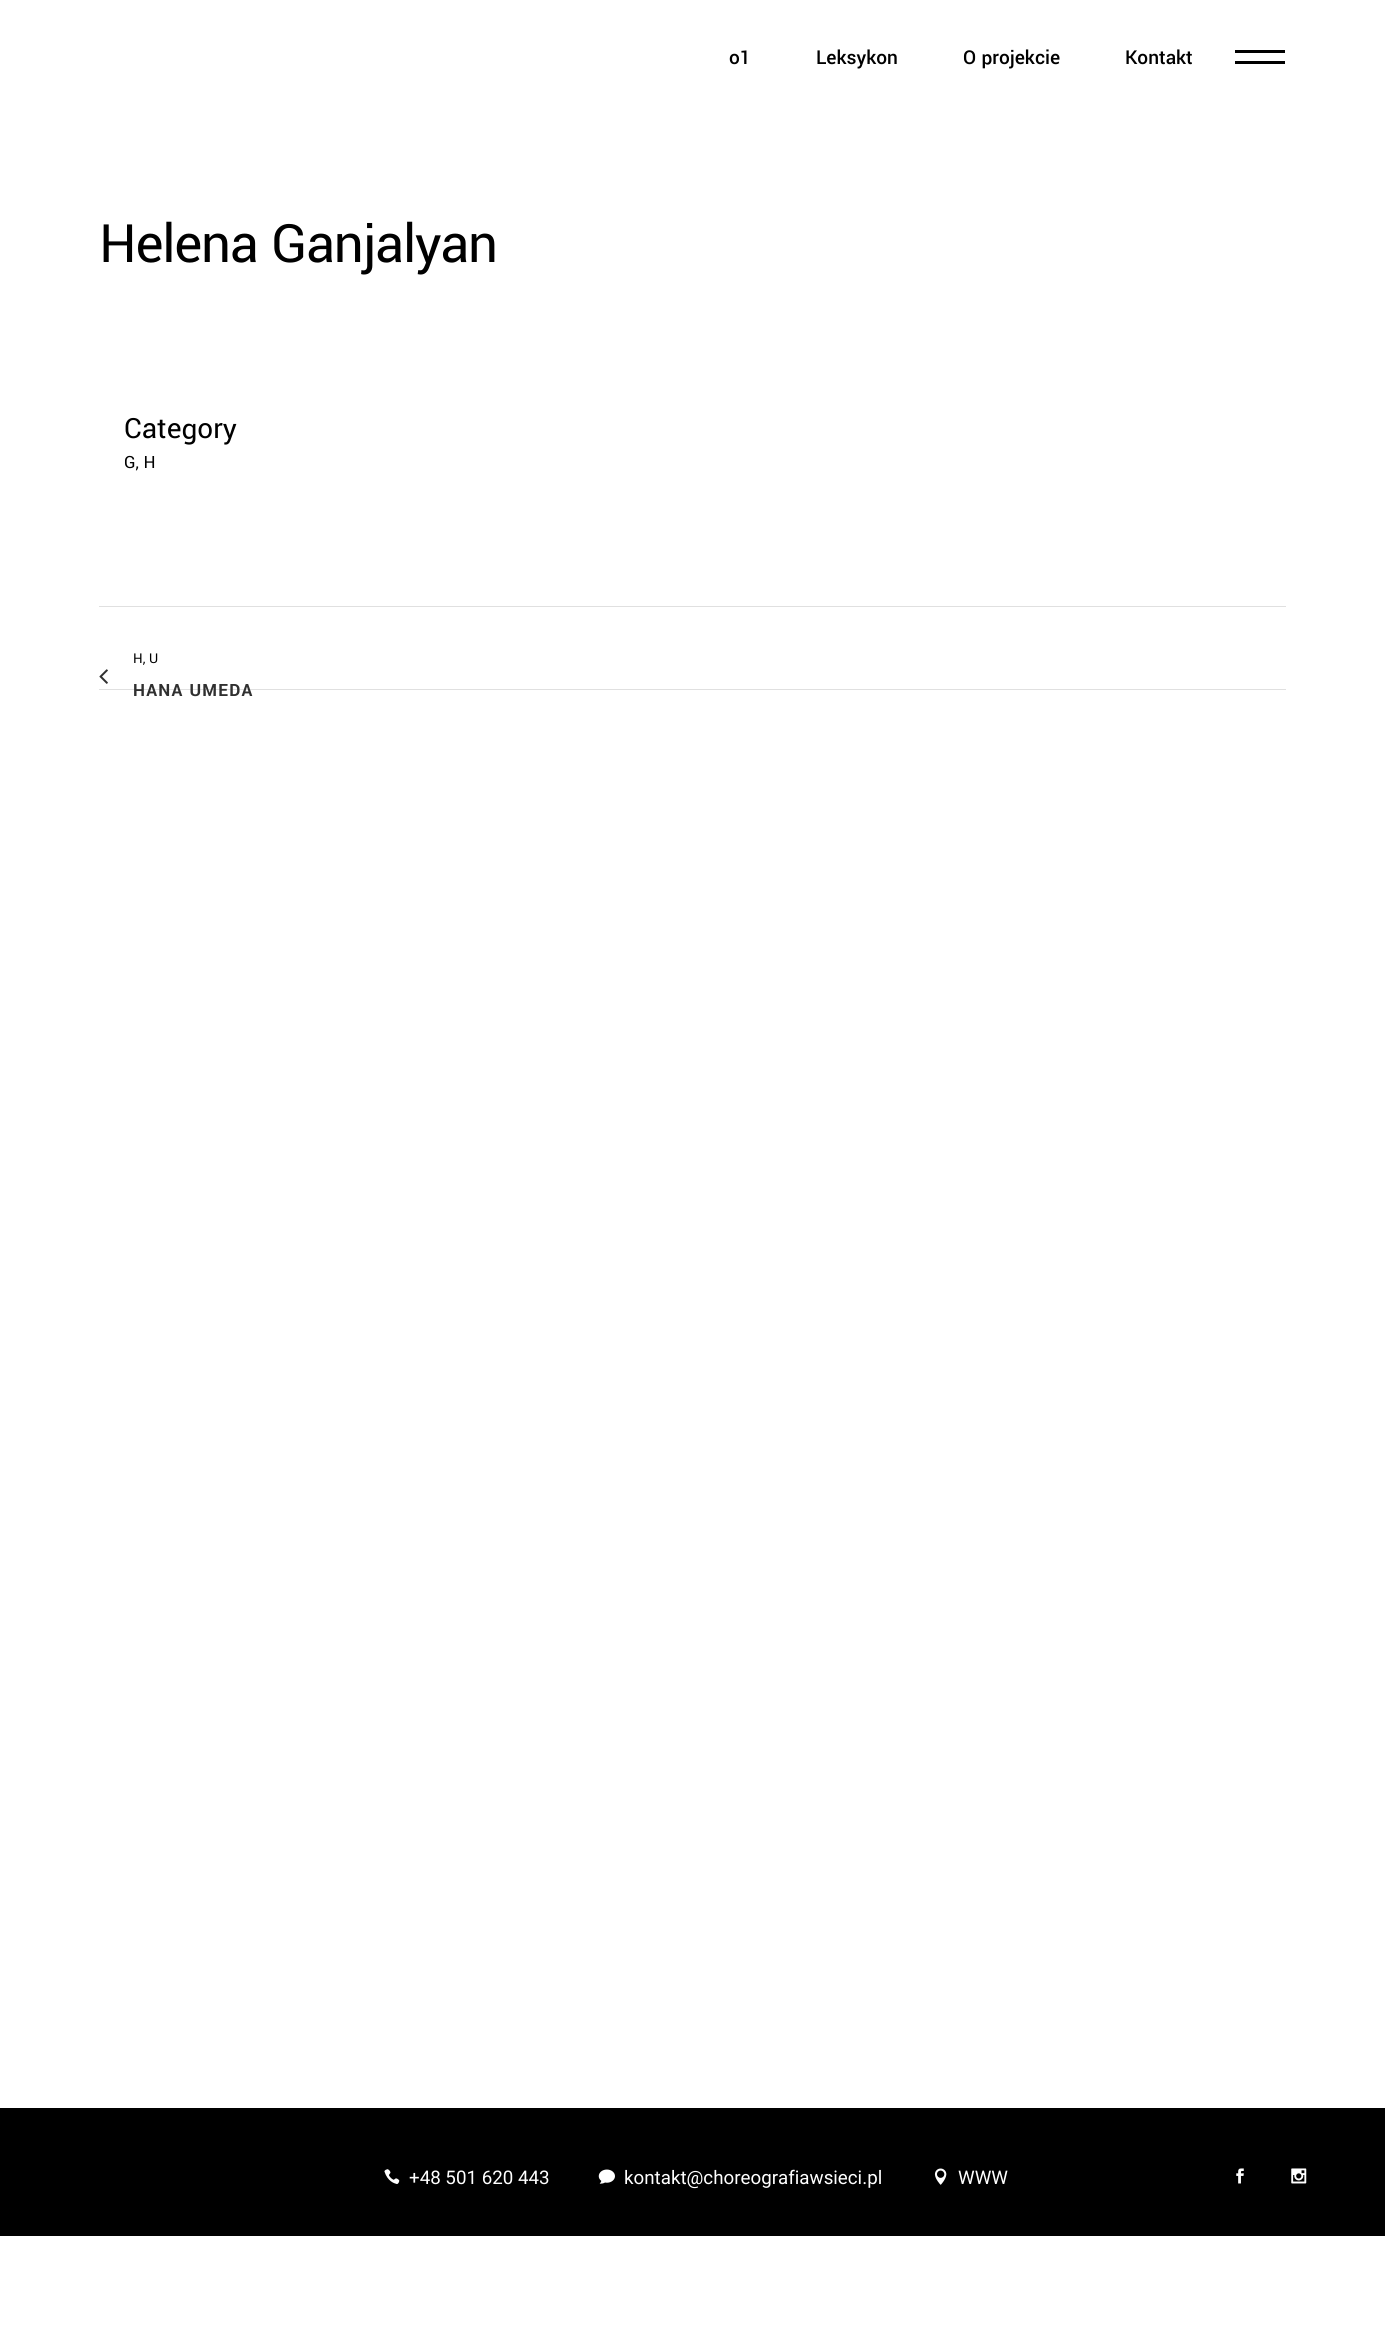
import math
import cairo


def use_color(cr, r, g, b):
  cr.set_source_rgb(r / 255, g / 255, b / 255)

def text(cr, x, y, s, family, size, color, bold=False, italic=False):
  cr.select_font_face(family, cairo.FONT_SLANT_ITALIC if italic else cairo.FONT_SLANT_NORMAL, cairo.FONT_WEIGHT_BOLD if bold else cairo.FONT_WEIGHT_NORMAL)
  cr.set_font_size(size)
  use_color(cr, *color)
  cr.move_to(x, y)
  cr.show_text(s)

def spaced_text(cr, x, y, s, letter, word):
  cr.move_to(x, y)
  for ch in s:
    cr.show_text(ch)
    cr.rel_move_to(letter + word * (ch == ' '), 0)

def box(cr, x, y, w, h, *color):
  use_color(cr, *color)
  cr.rectangle(x, y, w, h)
  cr.fill()

def picture(cr, path, x, y, w, h):
  cr.save()
  cr.set_source_surface(cairo.ImageSurface.create_from_png(path), x, y)
  cr.rectangle(x, y, w, h)
  cr.fill()
  cr.restore()

def draw(cr):
  use_color(cr, 255, 255, 255)
  cr.paint()
  box(cr, 1235, 50, 50, 3, 0, 0, 0)
  box(cr, 1235, 61, 50, 3, 0, 0, 0)
  box(cr, 99, 606, 1187, 1, 224, 224, 224)
  box(cr, 99, 689, 1187, 1, 224, 224, 224)
  picture(cr, "img_01.png", 99, 669, 9, 15)
  box(cr, 0, 2108, 1385, 128, 0, 0, 0)
  picture(cr, "img_02.png", 384, 2169, 16, 15)
  picture(cr, "img_03.png", 598, 2169, 17, 15)
  picture(cr, "img_04.png", 934, 2168, 13, 17)
  picture(cr, "img_05.png", 1236, 2168, 8, 16)
  picture(cr, "img_06.png", 1291, 2168, 16, 16)
  text(cr, 729, 64, "o1", "Yantramanav Medium", 21.25, (0, 0, 0))
  text(cr, 816, 64, "Leksykon", "Yantramanav Medium", 21.25, (0, 0, 0))
  text(cr, 963, 64, "O projekcie", "Yantramanav Medium", 21.25, (0, 0, 0))
  text(cr, 1125, 64, "Kontakt", "Yantramanav Medium", 21.25, (0, 0, 0))
  cr.select_font_face("Yantramanav")
  cr.set_font_size(58.75)
  spaced_text(cr, 99, 262, "Helena Ganjalyan", -1.25, 0)
  text(cr, 124, 438, "Category", "Yantramanav", 31, (0, 0, 0))
  text(cr, 124, 468, "G, H", "Yantramanav", 18.75, (0, 0, 0))
  text(cr, 133, 663, "H, U", "Yantramanav", 15, (0, 0, 0))
  cr.select_font_face("Yantramanav", cairo.FONT_SLANT_NORMAL, cairo.FONT_WEIGHT_BOLD)
  cr.set_font_size(18.75)
  use_color(cr, 48, 48, 48)
  spaced_text(cr, 133, 696, "HANA UMEDA", 1.25, 0)
  text(cr, 409, 2184, "+48 501 620 443", "Roboto", 18.75, (255, 255, 255))
  text(cr, 624, 2184, "kontakt@choreografiawsieci.pl", "Roboto", 18.75, (255, 255, 255))
  text(cr, 958, 2184, "WWW", "Roboto", 18.75, (255, 255, 255))


surface = cairo.ImageSurface(cairo.FORMAT_RGB24, 1385, 2352)
cr = cairo.Context(surface)
options = cairo.FontOptions()
options.set_hint_metrics(cairo.HINT_METRICS_OFF)
options.set_hint_style(cairo.HINT_STYLE_NONE)
cr.set_font_options(options)
cr.set_miter_limit(4)
draw(cr)
surface.write_to_png("out.png")
